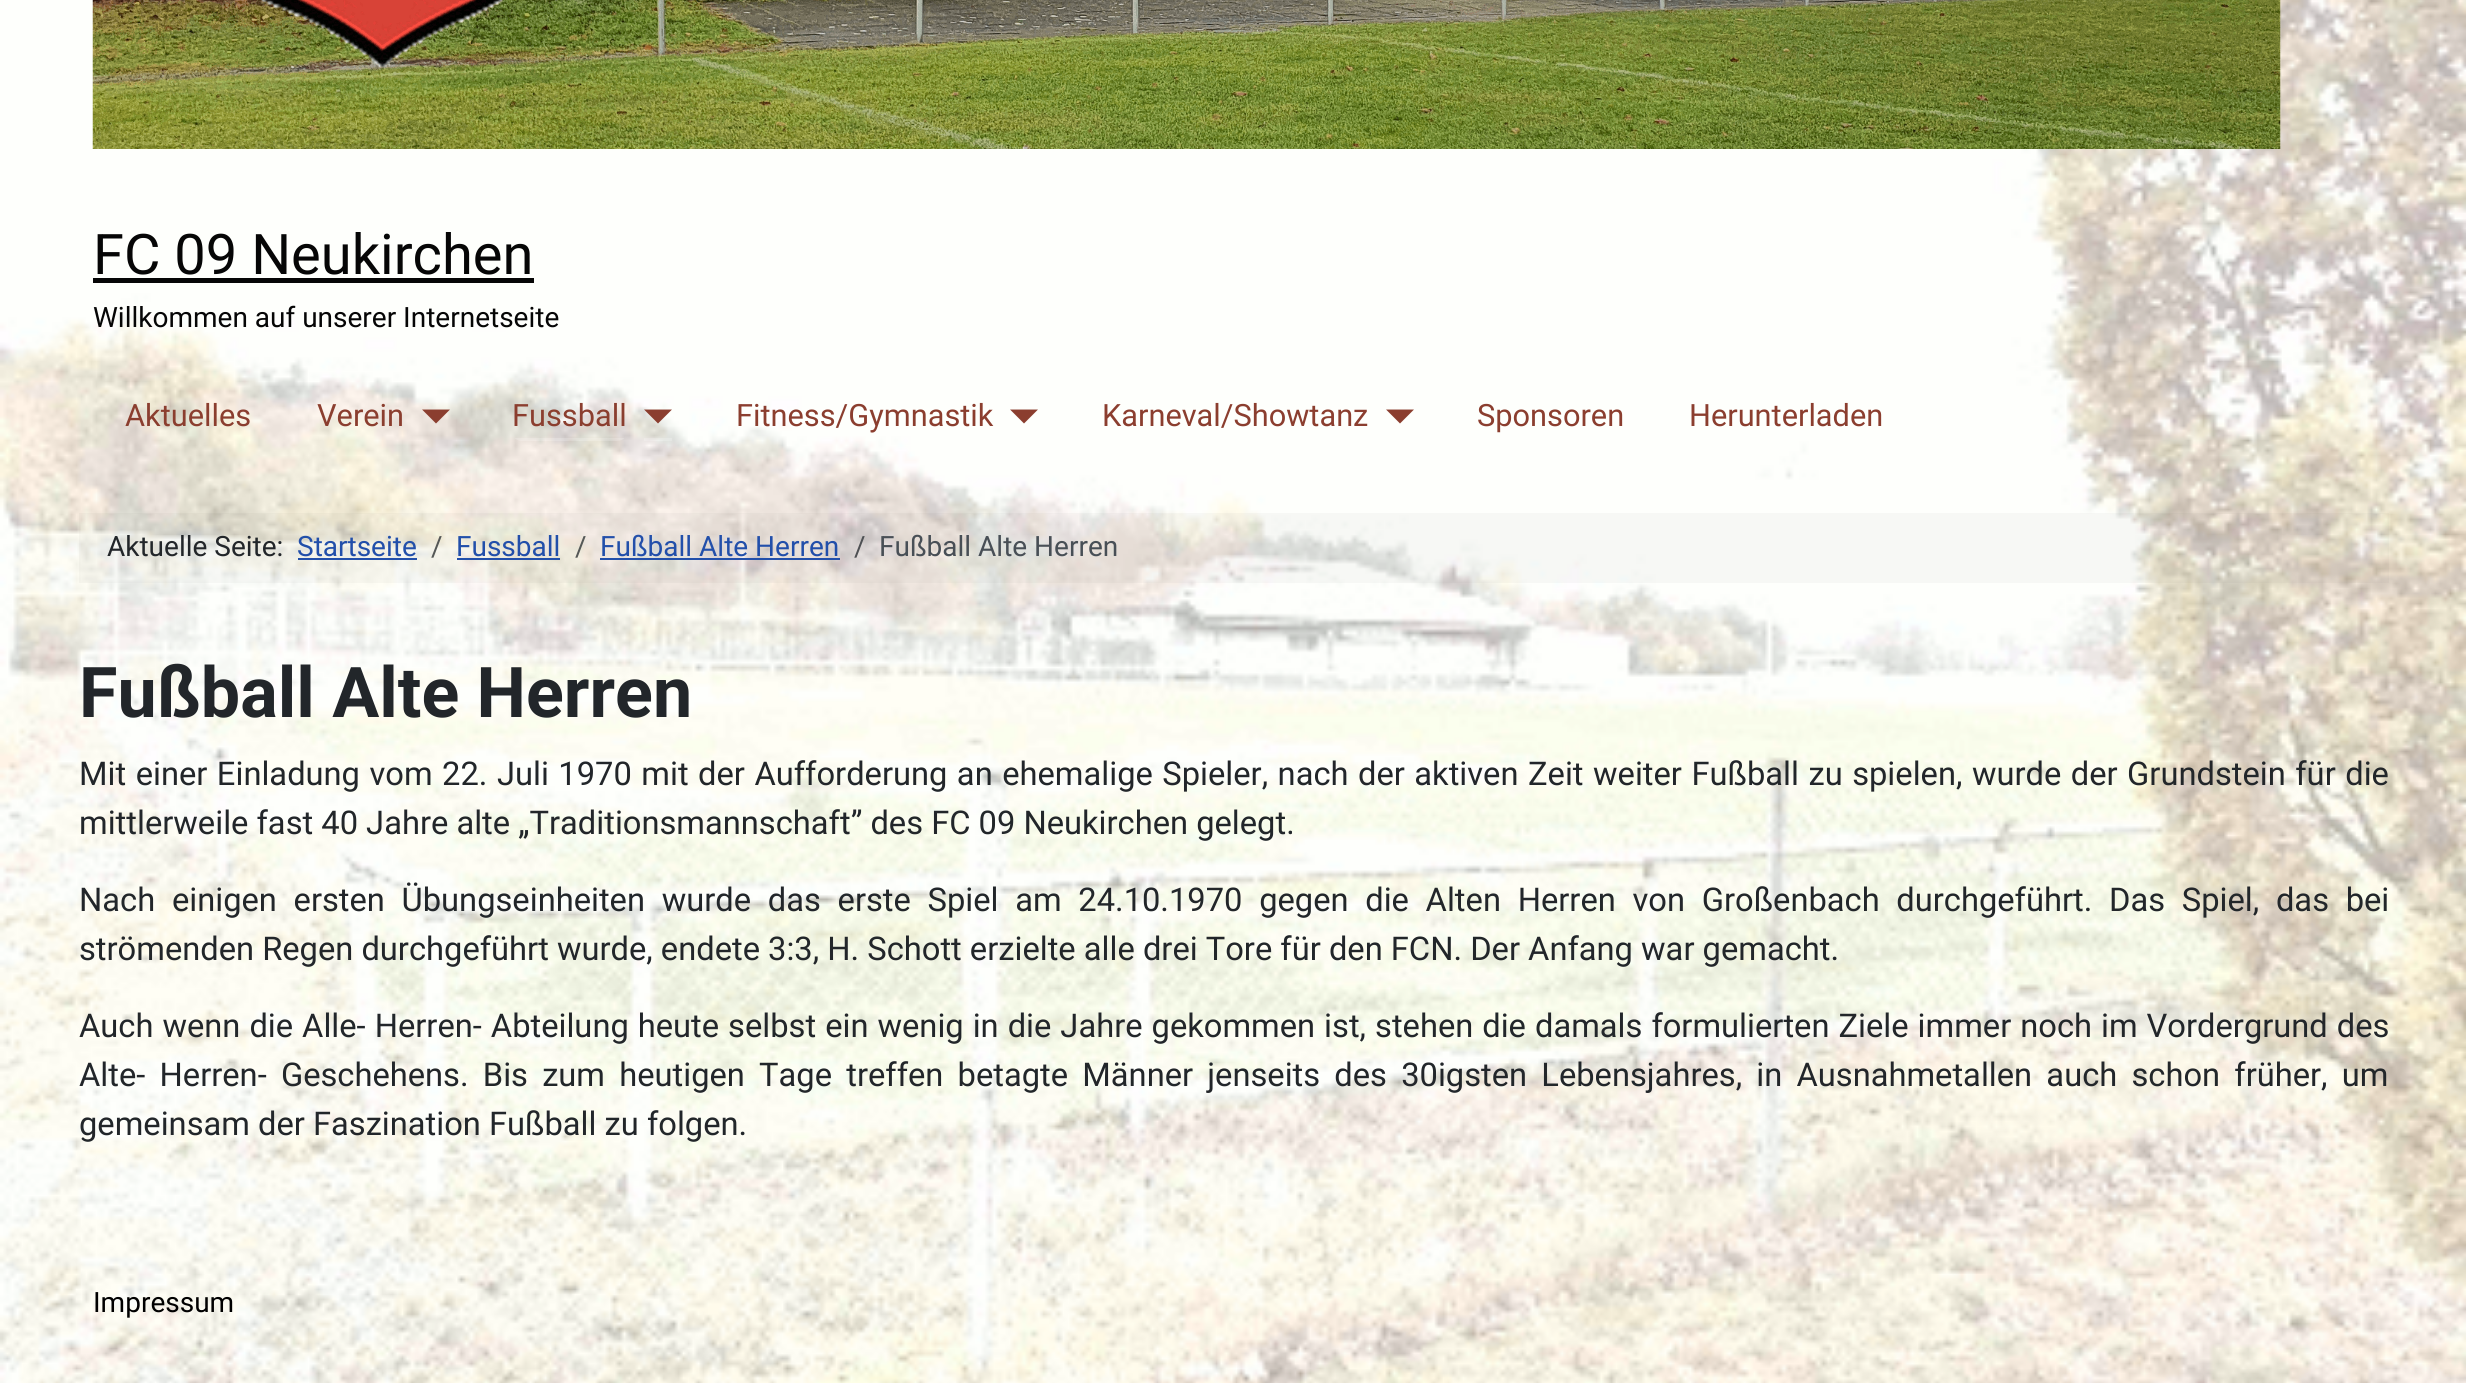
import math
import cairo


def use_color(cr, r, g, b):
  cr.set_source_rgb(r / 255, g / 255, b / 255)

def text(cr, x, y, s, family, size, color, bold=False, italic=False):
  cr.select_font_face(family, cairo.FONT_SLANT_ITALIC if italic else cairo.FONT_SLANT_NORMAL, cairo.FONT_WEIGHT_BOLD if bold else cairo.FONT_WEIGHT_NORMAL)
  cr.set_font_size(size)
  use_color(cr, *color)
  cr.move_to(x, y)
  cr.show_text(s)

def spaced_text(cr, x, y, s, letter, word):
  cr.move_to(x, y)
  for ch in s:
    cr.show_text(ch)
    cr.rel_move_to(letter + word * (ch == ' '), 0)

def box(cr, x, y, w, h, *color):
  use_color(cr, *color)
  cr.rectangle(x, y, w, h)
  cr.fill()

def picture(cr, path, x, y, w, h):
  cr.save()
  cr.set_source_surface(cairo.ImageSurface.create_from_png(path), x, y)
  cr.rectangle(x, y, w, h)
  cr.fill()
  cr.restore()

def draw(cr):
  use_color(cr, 255, 255, 255)
  cr.paint()
  picture(cr, "img_01.png", 0, 0, 2466, 1383)
  picture(cr, "img_02.png", 92, 0, 2189, 149)
  box(cr, 93, 278, 441, 5, 6, 6, 6)
  use_color(cr, 139, 62, 47)
  cr.new_path()
  cr.move_to(422, 409.5)
  cr.line_to(450, 409.5)
  cr.line_to(436, 423.5)
  cr.close_path()
  cr.fill()
  cr.save()
  cr.new_path()
  cr.move_to(511, 392)
  cr.line_to(628, 392)
  cr.line_to(628, 430)
  cr.curve_to(628, 436, 623, 441, 617, 441)
  cr.line_to(522, 441)
  cr.curve_to(516, 441, 511, 436, 511, 430)
  cr.close_path()
  cr.clip()
  cr.set_source_rgba(1, 1, 1, 0.2)
  cr.rectangle(511, 438, 117, 3)
  cr.fill()
  cr.restore()
  cr.new_path()
  cr.move_to(644, 409.5)
  cr.line_to(672, 409.5)
  cr.line_to(658, 423.5)
  cr.close_path()
  cr.fill()
  cr.set_source_rgba(1, 1, 1, 0.2)
  cr.rectangle(644, 438, 28, 3)
  cr.fill()
  use_color(cr, 139, 62, 47)
  cr.new_path()
  cr.move_to(1010, 409.5)
  cr.line_to(1038, 409.5)
  cr.line_to(1024, 423.5)
  cr.close_path()
  cr.fill()
  cr.new_path()
  cr.move_to(1386, 409.5)
  cr.line_to(1414, 409.5)
  cr.line_to(1400, 423.5)
  cr.close_path()
  cr.fill()
  cr.set_source_rgba(0, 0, 0, 0.03)
  cr.rectangle(79, 513, 2310, 70)
  cr.fill()
  box(cr, 298, 558, 119, 2, 34, 79, 170)
  box(cr, 457, 558, 103, 2, 34, 79, 170)
  box(cr, 600, 558, 240, 2, 34, 79, 170)
  text(cr, 93, 274, "FC 09 Neukirchen", "Roboto", 56, (6, 6, 6))
  text(cr, 93, 327, "Willkommen auf unserer Internetseite", "Roboto", 28, (6, 6, 6))
  text(cr, 125, 426, "Aktuelles", "Roboto", 30.75, (139, 62, 47))
  text(cr, 317, 426, "Verein", "Roboto", 30.75, (139, 62, 47))
  text(cr, 512, 426, "Fussball", "Roboto", 30.75, (139, 62, 47))
  text(cr, 736, 426, "Fitness/Gymnastik", "Roboto", 30.75, (139, 62, 47))
  text(cr, 1102, 426, "Karneval/Showtanz", "Roboto", 30.75, (139, 62, 47))
  text(cr, 1477, 426, "Sponsoren", "Roboto", 30.75, (139, 62, 47))
  text(cr, 1689, 426, "Herunterladen", "Roboto", 30.75, (139, 62, 47))
  text(cr, 107, 556, "Aktuelle Seite:", "Roboto", 28, (34, 38, 42))
  text(cr, 297, 556, "Startseite", "Roboto", 28, (34, 79, 170))
  text(cr, 431, 556, "/", "Roboto", 28, (85, 88, 87))
  text(cr, 456, 556, "Fussball", "Roboto", 28, (34, 79, 170))
  text(cr, 575, 556, "/", "Roboto", 28, (85, 88, 87))
  text(cr, 600, 556, "Fußball Alte Herren", "Roboto", 28, (34, 79, 170))
  text(cr, 854, 556, "/", "Roboto", 28, (78, 80, 83))
  text(cr, 879, 556, "Fußball Alte Herren", "Roboto", 28, (72, 79, 86))
  text(cr, 79, 717, "Fußball Alte Herren", "Roboto", 70, (34, 38, 42), bold=True)
  cr.select_font_face("Roboto")
  cr.set_font_size(32.67)
  spaced_text(cr, 79, 785, "Mit einer Einladung vom 22. Juli 1970 mit der Aufforderung an ehemalige Spieler, nach der aktiven Zeit weiter Fußball zu spielen, wurde der Grundstein für die", 0, 1.4)
  text(cr, 79, 834, "mittlerweile fast 40 Jahre alte „Traditionsmannschaft” des FC 09 Neukirchen gelegt.", "Roboto", 32.67, (34, 38, 42))
  spaced_text(cr, 79, 911, "Nach einigen ersten Übungseinheiten wurde das erste Spiel am 24.10.1970 gegen die Alten Herren von Großenbach durchgeführt. Das Spiel, das bei", 0, 8.6)
  text(cr, 79, 960, "strömenden Regen durchgeführt wurde, endete 3:3, H. Schott erzielte alle drei Tore für den FCN. Der Anfang war gemacht.", "Roboto", 32.67, (34, 38, 42))
  spaced_text(cr, 79, 1037, "Auch wenn die Alle- Herren- Abteilung heute selbst ein wenig in die Jahre gekommen ist, stehen die damals formulierten Ziele immer noch im Vordergrund des", 0, 0.9)
  spaced_text(cr, 79, 1086, "Alte- Herren- Geschehens. Bis zum heutigen Tage treffen betagte Männer jenseits des 30igsten Lebensjahres, in Ausnahmetallen auch schon früher, um", 0, 6.1)
  text(cr, 79, 1135, "gemeinsam der Faszination Fußball zu folgen.", "Roboto", 32.67, (34, 38, 42))
  text(cr, 93, 1312, "Impressum", "Roboto", 28, (0, 0, 0))


surface = cairo.ImageSurface(cairo.FORMAT_RGB24, 2466, 1383)
cr = cairo.Context(surface)
options = cairo.FontOptions()
options.set_hint_metrics(cairo.HINT_METRICS_OFF)
options.set_hint_style(cairo.HINT_STYLE_NONE)
cr.set_font_options(options)
cr.set_miter_limit(4)
draw(cr)
surface.write_to_png("out.png")
